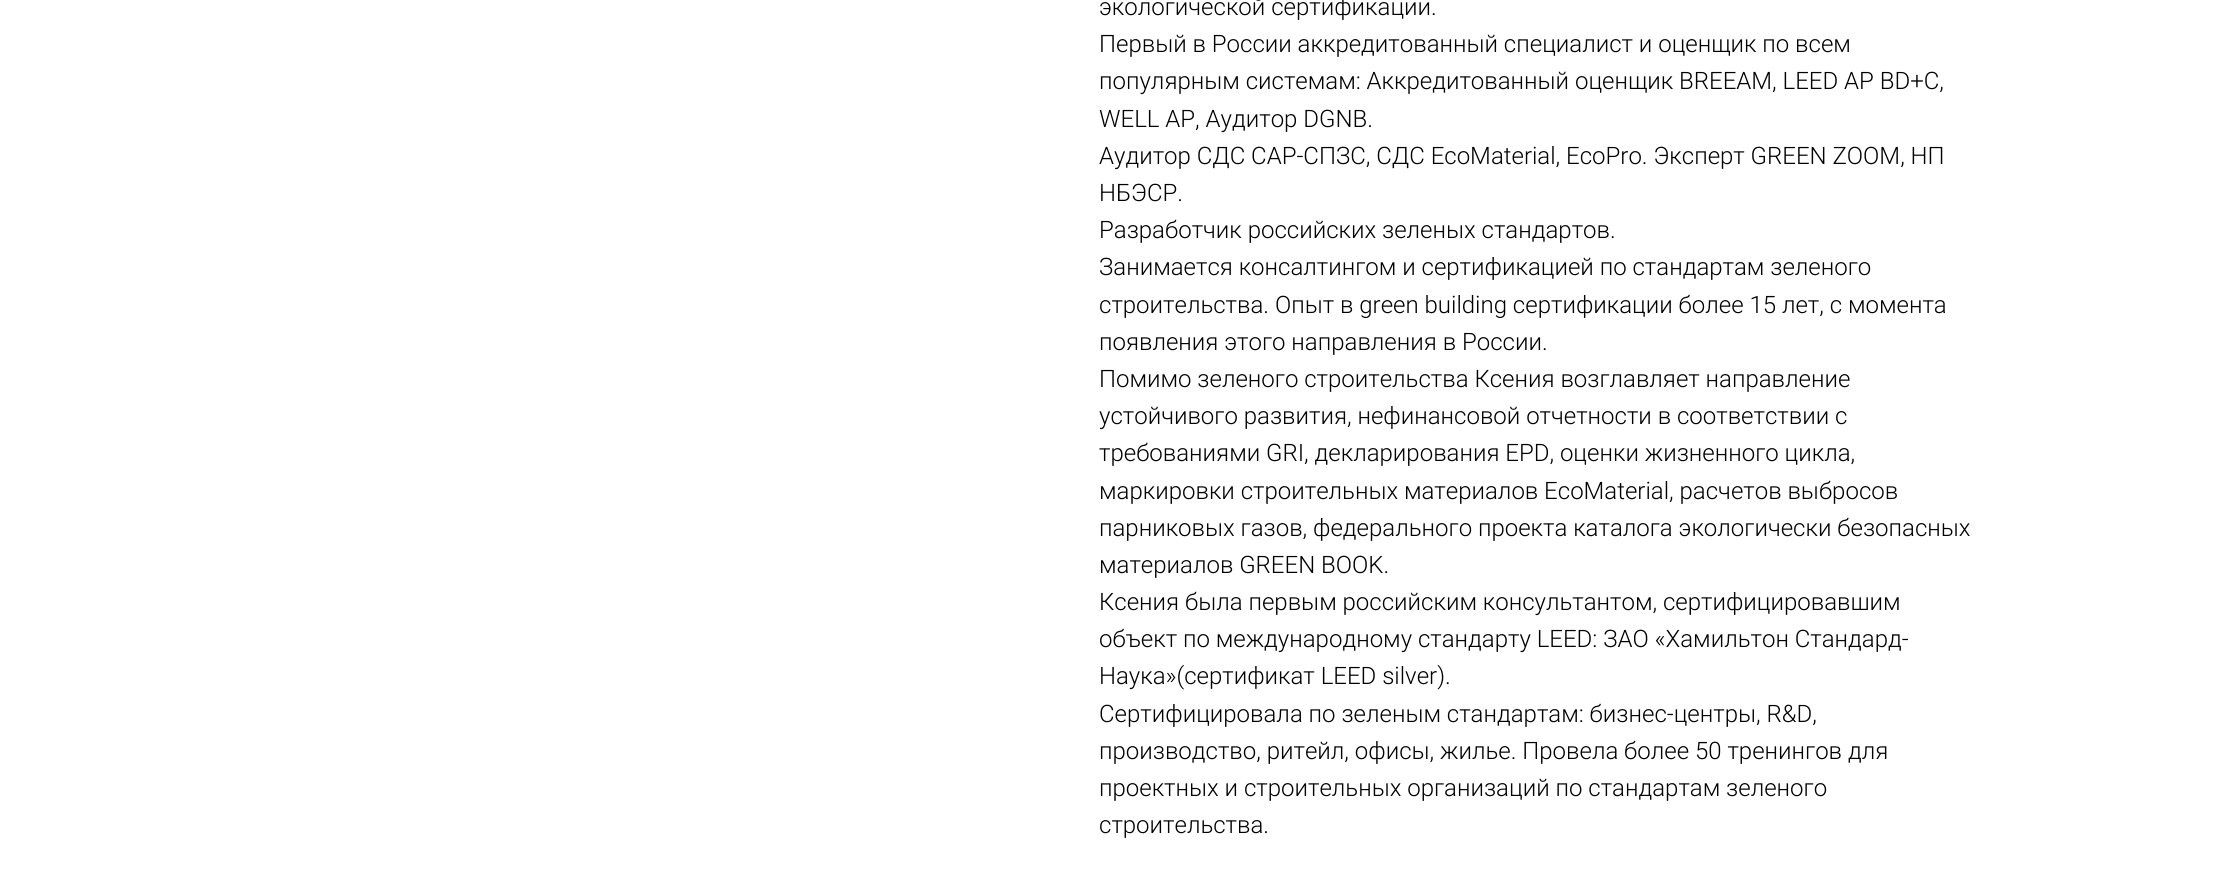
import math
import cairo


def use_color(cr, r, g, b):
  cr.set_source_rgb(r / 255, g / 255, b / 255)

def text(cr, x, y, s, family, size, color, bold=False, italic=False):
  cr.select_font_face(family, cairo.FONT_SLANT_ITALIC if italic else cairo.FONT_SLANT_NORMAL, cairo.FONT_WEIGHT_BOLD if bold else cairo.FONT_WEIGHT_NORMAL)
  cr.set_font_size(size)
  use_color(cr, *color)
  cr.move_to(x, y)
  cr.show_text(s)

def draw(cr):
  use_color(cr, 255, 255, 255)
  cr.paint()
  text(cr, 1099, 15, "экологической сертификации.", "Roboto Light", 24, (0, 0, 0))
  text(cr, 1099, 52, "Первый в России аккредитованный специалист и оценщик по всем", "Roboto Light", 24, (0, 0, 0))
  text(cr, 1099, 89, "популярным системам: Аккредитованный оценщик BREEAM, LEED AP BD+C,", "Roboto Light", 24, (0, 0, 0))
  text(cr, 1099, 127, "WELL AP, Аудитор DGNB.", "Roboto Light", 24, (0, 0, 0))
  text(cr, 1099, 164, "Аудитор СДС САР-СПЗС, СДС EcoMaterial, EcoPro. Эксперт GREEN ZOOM, НП", "Roboto Light", 24, (0, 0, 0))
  text(cr, 1099, 201, "НБЭСР.", "Roboto Light", 24, (0, 0, 0))
  text(cr, 1099, 238, "Разработчик российских зеленых стандартов.", "Roboto Light", 24, (0, 0, 0))
  text(cr, 1099, 275, "Занимается консалтингом и сертификацией по стандартам зеленого", "Roboto Light", 24, (0, 0, 0))
  text(cr, 1099, 313, "строительства. Опыт в green building сертификации более 15 лет, с момента", "Roboto Light", 24, (0, 0, 0))
  text(cr, 1099, 350, "появления этого направления в России.", "Roboto Light", 24, (0, 0, 0))
  text(cr, 1099, 387, "Помимо зеленого строительства Ксения возглавляет направление", "Roboto Light", 24, (0, 0, 0))
  text(cr, 1099, 424, "устойчивого развития, нефинансовой отчетности в соответствии с", "Roboto Light", 24, (0, 0, 0))
  text(cr, 1099, 461, "требованиями GRI, декларирования EPD, оценки жизненного цикла,", "Roboto Light", 24, (0, 0, 0))
  text(cr, 1099, 499, "маркировки строительных материалов EcoMaterial, расчетов выбросов", "Roboto Light", 24, (0, 0, 0))
  text(cr, 1099, 536, "парниковых газов, федерального проекта каталога экологически безопасных", "Roboto Light", 24, (0, 0, 0))
  text(cr, 1099, 573, "материалов GREEN BOOK.", "Roboto Light", 24, (0, 0, 0))
  text(cr, 1099, 610, "Ксения была первым российским консультантом, сертифицировавшим", "Roboto Light", 24, (0, 0, 0))
  text(cr, 1099, 647, "объект по международному стандарту LEED: ЗАО «Хамильтон Стандард-", "Roboto Light", 24, (0, 0, 0))
  text(cr, 1099, 684, "Наука»(сертификат LEED silver).", "Roboto Light", 24, (0, 0, 0))
  text(cr, 1099, 722, "Сертифицировала по зеленым стандартам: бизнес-центры, R&D,", "Roboto Light", 24, (0, 0, 0))
  text(cr, 1099, 759, "производство, ритейл, офисы, жилье. Провела более 50 тренингов для", "Roboto Light", 24, (0, 0, 0))
  text(cr, 1099, 796, "проектных и строительных организаций по стандартам зеленого", "Roboto Light", 24, (0, 0, 0))
  text(cr, 1099, 833, "строительства.", "Roboto Light", 24, (0, 0, 0))


surface = cairo.ImageSurface(cairo.FORMAT_RGB24, 2238, 890)
cr = cairo.Context(surface)
options = cairo.FontOptions()
options.set_hint_metrics(cairo.HINT_METRICS_OFF)
options.set_hint_style(cairo.HINT_STYLE_NONE)
cr.set_font_options(options)
cr.set_miter_limit(4)
draw(cr)
surface.write_to_png("out.png")
